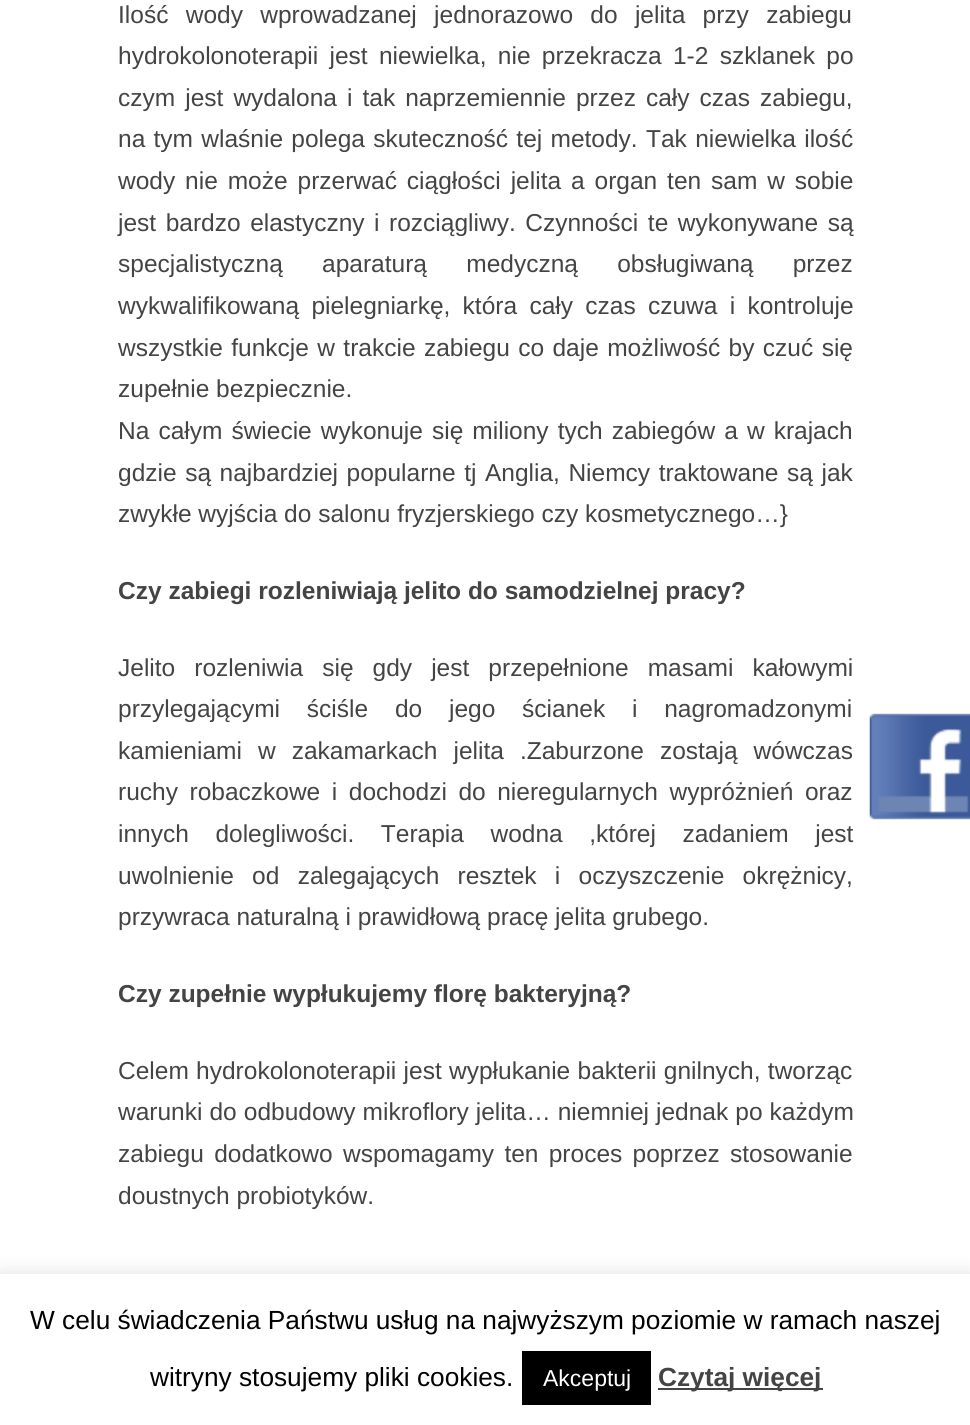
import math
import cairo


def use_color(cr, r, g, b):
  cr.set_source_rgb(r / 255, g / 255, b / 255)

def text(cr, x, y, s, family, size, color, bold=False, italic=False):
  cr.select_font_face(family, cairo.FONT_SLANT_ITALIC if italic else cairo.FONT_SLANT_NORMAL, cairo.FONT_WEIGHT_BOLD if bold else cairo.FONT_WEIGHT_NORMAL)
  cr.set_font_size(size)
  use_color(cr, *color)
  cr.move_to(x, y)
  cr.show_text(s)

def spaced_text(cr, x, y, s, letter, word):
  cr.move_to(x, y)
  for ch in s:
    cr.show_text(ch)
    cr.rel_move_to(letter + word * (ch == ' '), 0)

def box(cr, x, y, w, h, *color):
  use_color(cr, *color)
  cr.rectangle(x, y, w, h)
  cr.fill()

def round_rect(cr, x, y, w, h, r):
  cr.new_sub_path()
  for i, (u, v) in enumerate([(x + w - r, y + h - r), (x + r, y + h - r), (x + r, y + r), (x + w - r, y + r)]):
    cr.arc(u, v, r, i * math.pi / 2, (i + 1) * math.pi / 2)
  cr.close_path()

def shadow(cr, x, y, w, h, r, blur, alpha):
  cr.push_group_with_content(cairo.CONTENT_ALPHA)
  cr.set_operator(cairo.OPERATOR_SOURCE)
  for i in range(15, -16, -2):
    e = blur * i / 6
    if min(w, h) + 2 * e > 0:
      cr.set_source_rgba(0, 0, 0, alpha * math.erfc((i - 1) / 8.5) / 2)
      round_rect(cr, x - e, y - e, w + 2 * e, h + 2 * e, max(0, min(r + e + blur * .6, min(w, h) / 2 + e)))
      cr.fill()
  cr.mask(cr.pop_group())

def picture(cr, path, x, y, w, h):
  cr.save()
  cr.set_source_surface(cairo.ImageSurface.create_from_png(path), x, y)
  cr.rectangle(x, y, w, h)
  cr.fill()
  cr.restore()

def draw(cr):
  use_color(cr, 255, 255, 255)
  cr.paint()
  picture(cr, "img_01.png", 869, 713, 101, 107)
  use_color(cr, 172, 171, 171)
  shadow(cr, 0, 1272, 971, 153, 0, 9, 0.3)
  box(cr, 0, 1274, 970, 151, 255, 255, 255)
  box(cr, 522, 1351, 129, 54, 0, 0, 0)
  box(cr, 658, 1388, 165, 2, 68, 68, 68)
  cr.select_font_face("Liberation Sans")
  cr.set_font_size(24.5)
  spaced_text(cr, 118, 23, "Ilość wody wprowadzanej jednorazowo do jelita przy zabiegu", 0, 10.5)
  spaced_text(cr, 118, 64, "hydrokolonoterapii jest niewielka, nie przekracza 1-2 szklanek po", 0, 4.5)
  spaced_text(cr, 118, 106, "czym jest wydalona i tak naprzemiennie przez cały czas zabiegu,", 0, 3.25)
  spaced_text(cr, 118, 147, "na tym wlaśnie polega skuteczność tej metody. Tak niewielka ilość", 0, 1.5)
  spaced_text(cr, 118, 189, "wody nie może przerwać ciągłości jelita a organ ten sam w sobie", 0, 3.1)
  spaced_text(cr, 118, 231, "jest bardzo elastyczny i rozciągliwy. Czynności te wykonywane są", 0, 2.75)
  spaced_text(cr, 118, 272, "specjalistyczną aparaturą medyczną obsługiwaną przez", 0, 32.5)
  spaced_text(cr, 118, 314, "wykwalifikowaną pielegniarkę, która cały czas czuwa i kontroluje", 0, 5.5)
  spaced_text(cr, 118, 356, "wszystkie funkcje w trakcie zabiegu co daje możliwość by czuć się", 0, 1.6)
  text(cr, 118, 397, "zupełnie bezpiecznie.", "Liberation Sans", 24.5, (68, 68, 68))
  spaced_text(cr, 118, 439, "Na całym świecie wykonuje się miliony tych zabiegów a w krajach", 0, 2.25)
  spaced_text(cr, 118, 481, "gdzie są najbardziej popularne tj Anglia, Niemcy traktowane są jak", 0, 1.75)
  text(cr, 118, 522, "zwykłe wyjścia do salonu fryzjerskiego czy kosmetycznego…}", "Liberation Sans", 24.5, (68, 68, 68))
  text(cr, 118, 599, "Czy zabiegi rozleniwiają jelito do samodzielnej pracy?", "Liberation Sans", 24.5, (68, 68, 68), bold=True)
  cr.select_font_face("Liberation Sans")
  spaced_text(cr, 118, 676, "Jelito rozleniwia się gdy jest przepełnione masami kałowymi", 0, 12.25)
  spaced_text(cr, 118, 717, "przylegającymi ściśle do jego ścianek i nagromadzonymi", 0, 20)
  spaced_text(cr, 118, 759, "kamieniami w zakamarkach jelita .Zaburzone zostają wówczas", 0, 9.25)
  spaced_text(cr, 118, 800, "ruchy robaczkowe i dochodzi do nieregularnych wypróżnień oraz", 0, 4.75)
  spaced_text(cr, 118, 842, "innych dolegliwości. Terapia wodna ,której zadaniem jest", 0, 19.75)
  spaced_text(cr, 118, 884, "uwolnienie od zalegających resztek i oczyszczenie okrężnicy,", 0, 11.5)
  text(cr, 118, 925, "przywraca naturalną i prawidłową pracę jelita grubego.", "Liberation Sans", 24.5, (68, 68, 68))
  text(cr, 118, 1002, "Czy zupełnie wypłukujemy florę bakteryjną?", "Liberation Sans", 24.5, (68, 68, 68), bold=True)
  cr.select_font_face("Liberation Sans")
  spaced_text(cr, 118, 1079, "Celem hydrokolonoterapii jest wypłukanie bakterii gnilnych, tworząc", 0, 0.5)
  spaced_text(cr, 118, 1120, "warunki do odbudowy mikroflory jelita… niemniej jednak po każdym", 0, 0.25)
  spaced_text(cr, 118, 1162, "zabiegu dodatkowo wspomagamy ten proces poprzez stosowanie", 0, 3.5)
  text(cr, 118, 1204, "doustnych probiotyków.", "Liberation Sans", 24.5, (68, 68, 68))
  text(cr, 30, 1329, "W celu świadczenia Państwu usług na najwyższym poziomie w ramach naszej", "Liberation Sans", 26.25, (0, 0, 0))
  text(cr, 150, 1386, "witryny stosujemy pliki cookies.", "Liberation Sans", 26.25, (0, 0, 0))
  text(cr, 543, 1386, "Akceptuj", "Liberation Sans", 23, (255, 255, 255))
  text(cr, 658, 1386, "Czytaj więcej", "Liberation Sans", 26.25, (68, 68, 68), bold=True)


surface = cairo.ImageSurface(cairo.FORMAT_RGB24, 970, 1425)
cr = cairo.Context(surface)
options = cairo.FontOptions()
options.set_hint_metrics(cairo.HINT_METRICS_OFF)
options.set_hint_style(cairo.HINT_STYLE_NONE)
cr.set_font_options(options)
cr.set_miter_limit(4)
draw(cr)
surface.write_to_png("out.png")
